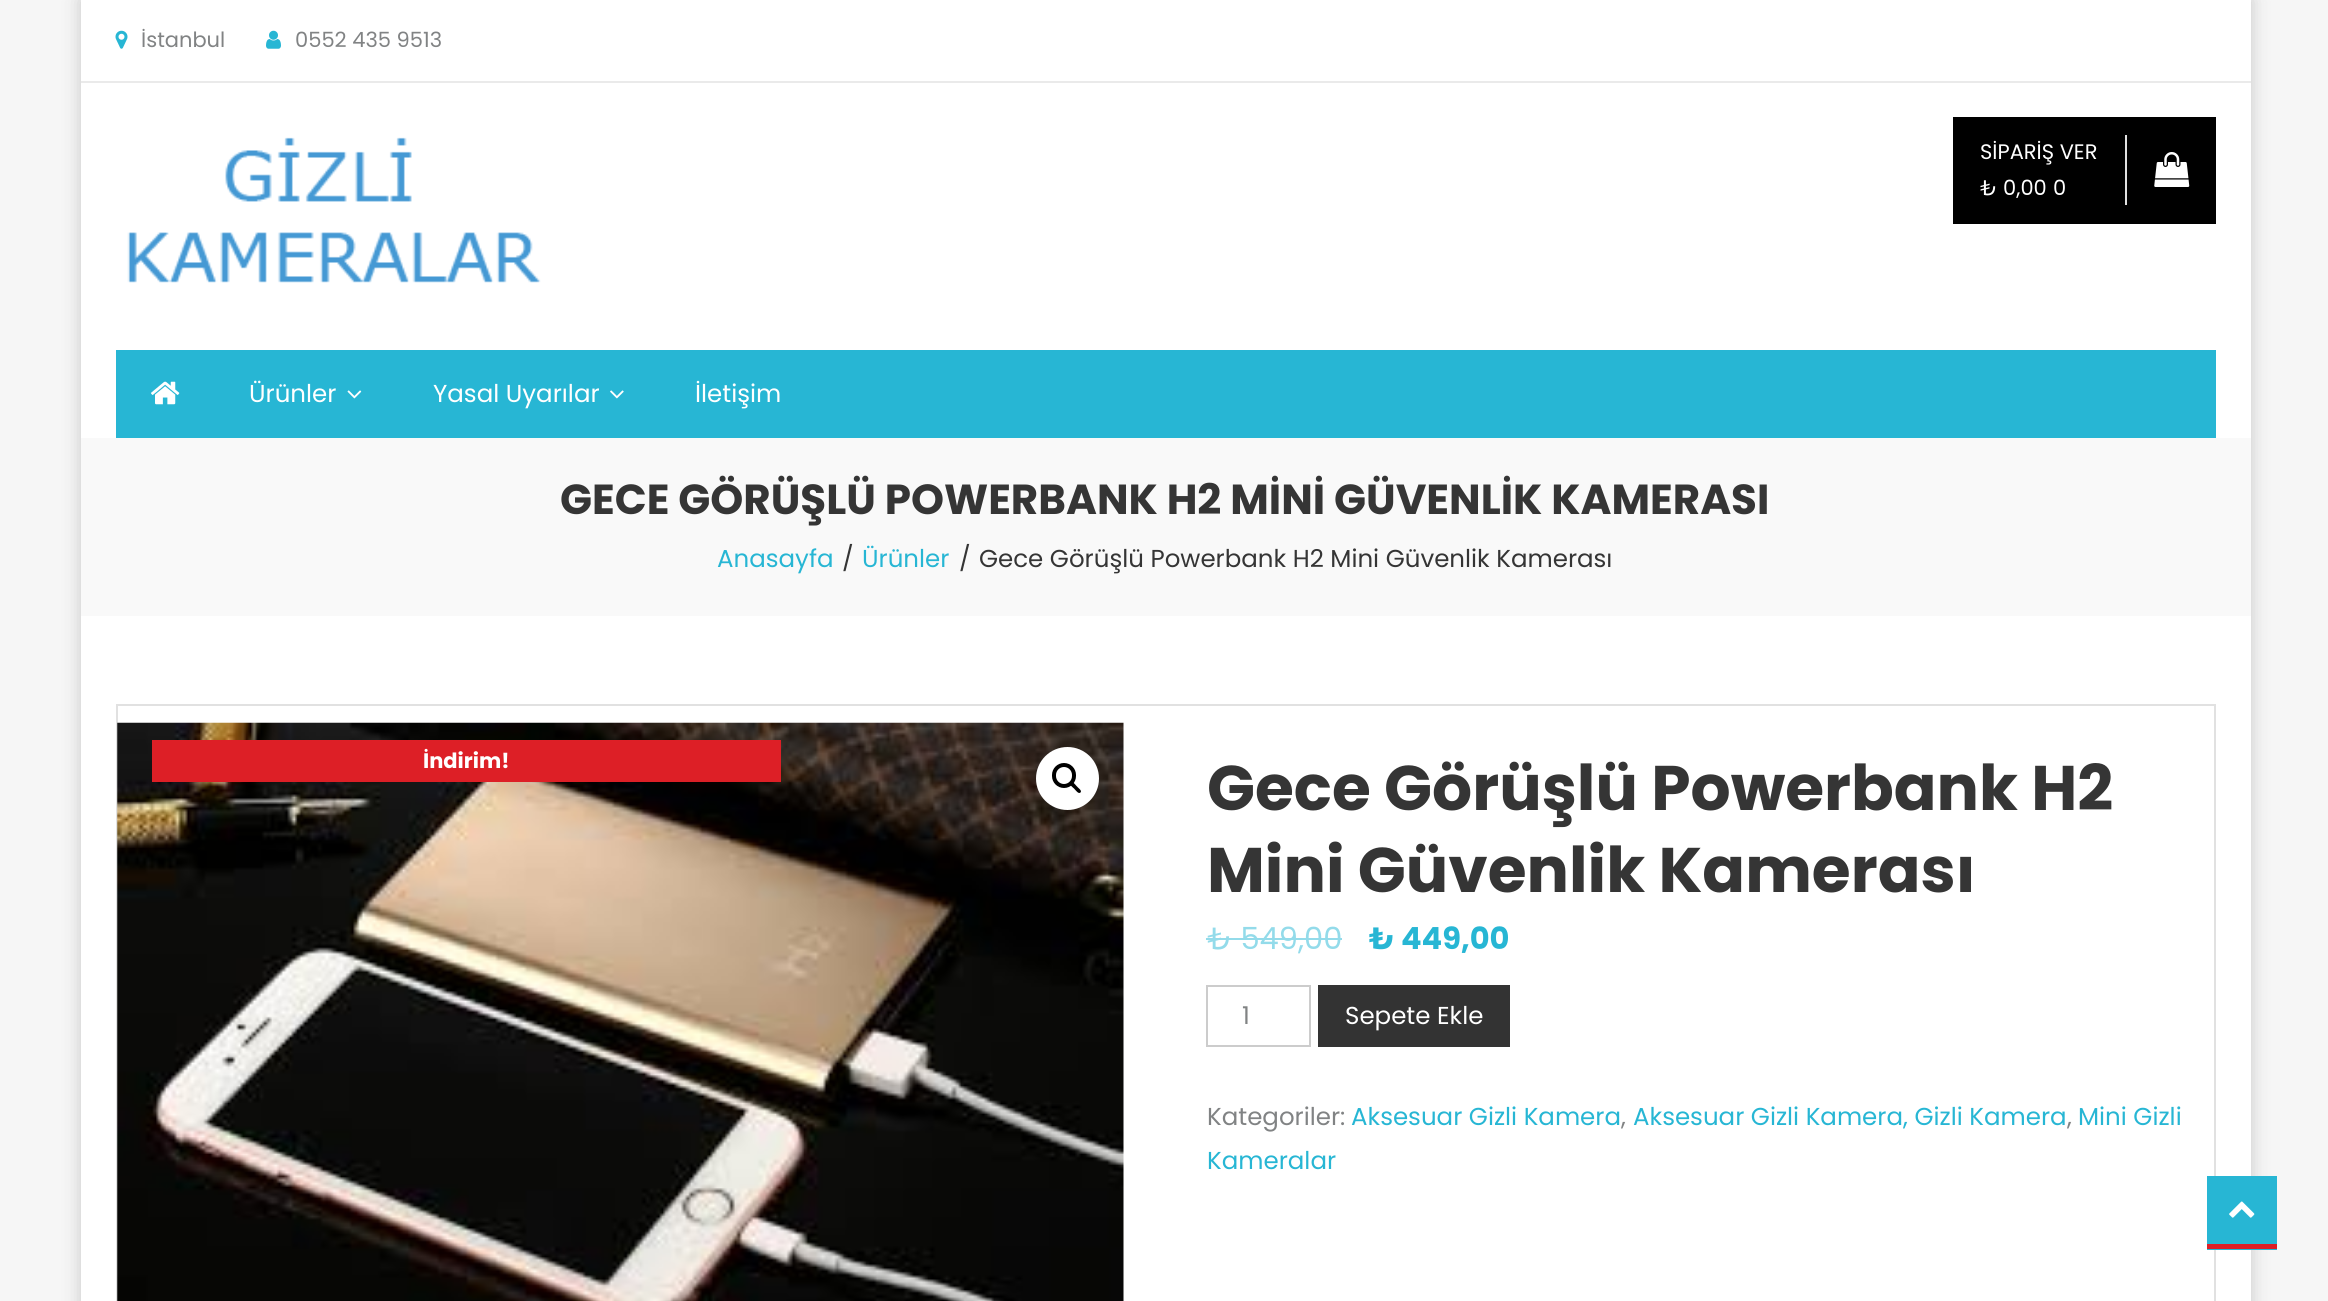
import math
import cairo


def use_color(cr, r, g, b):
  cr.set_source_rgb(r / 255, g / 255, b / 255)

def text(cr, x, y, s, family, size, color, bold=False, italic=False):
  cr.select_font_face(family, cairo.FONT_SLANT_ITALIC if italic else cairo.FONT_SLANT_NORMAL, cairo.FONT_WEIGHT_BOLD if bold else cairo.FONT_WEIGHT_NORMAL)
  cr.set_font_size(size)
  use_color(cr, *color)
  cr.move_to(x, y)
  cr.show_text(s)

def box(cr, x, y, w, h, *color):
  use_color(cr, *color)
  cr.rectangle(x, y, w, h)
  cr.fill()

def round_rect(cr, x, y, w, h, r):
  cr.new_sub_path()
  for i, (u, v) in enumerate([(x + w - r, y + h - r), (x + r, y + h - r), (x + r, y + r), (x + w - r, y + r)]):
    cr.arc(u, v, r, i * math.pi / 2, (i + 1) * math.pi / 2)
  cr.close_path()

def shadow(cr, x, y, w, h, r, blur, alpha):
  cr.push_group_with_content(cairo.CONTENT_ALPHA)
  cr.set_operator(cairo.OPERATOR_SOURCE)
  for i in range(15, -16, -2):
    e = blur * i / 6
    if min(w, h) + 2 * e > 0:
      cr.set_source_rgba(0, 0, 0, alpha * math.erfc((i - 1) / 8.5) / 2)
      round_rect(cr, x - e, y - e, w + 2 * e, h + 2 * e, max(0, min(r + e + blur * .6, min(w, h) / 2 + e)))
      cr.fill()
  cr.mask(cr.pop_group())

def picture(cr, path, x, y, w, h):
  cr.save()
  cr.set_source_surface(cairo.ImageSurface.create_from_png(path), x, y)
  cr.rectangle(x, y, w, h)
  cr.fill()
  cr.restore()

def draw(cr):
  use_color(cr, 246, 246, 246)
  cr.paint()
  use_color(cr, 199, 199, 199)
  shadow(cr, 81, 0, 2170, 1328, 0, 9, 1)
  box(cr, 81, 0, 2170, 1301, 255, 255, 255)
  box(cr, 81, 81, 2170, 2, 234, 234, 234)
  picture(cr, "img_01.png", 115, 30, 13, 19)
  picture(cr, "img_02.png", 266, 30, 15, 19)
  picture(cr, "img_03.png", 127, 137, 414, 146)
  box(cr, 1953, 117, 263, 107, 0, 0, 0)
  box(cr, 2125, 135, 2, 70, 225, 225, 225)
  picture(cr, "img_04.png", 2154, 152, 36, 35)
  box(cr, 116, 350, 2100, 88, 39, 182, 212)
  picture(cr, "img_05.png", 151, 381, 29, 24)
  picture(cr, "img_06.png", 347, 390, 15, 9)
  picture(cr, "img_07.png", 610, 390, 14, 9)
  box(cr, 81, 438, 2170, 178, 249, 249, 249)
  cr.rectangle(117, 705, 2098, 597)
  use_color(cr, 225, 225, 225)
  cr.stroke()
  picture(cr, "img_08.png", 117, 722, 1007, 579)
  use_color(cr, 255, 255, 255)
  cr.arc(1067.5, 778.5, 31.5, 0, 2 * math.pi)
  cr.fill()
  round_rect(cr, 1054, 765, 20, 21, 10)
  use_color(cr, 0, 0, 0)
  cr.set_line_width(4)
  cr.stroke()
  cr.new_path()
  cr.move_to(1070.5, 782.5)
  cr.curve_to(1072.5, 780.5, 1075.5, 785, 1076.5, 786)
  cr.curve_to(1077.5, 787.5, 1082.5, 790.5, 1080.5, 792.5)
  cr.curve_to(1078.5, 794.5, 1075.5, 790, 1074, 788.5)
  cr.curve_to(1073, 787.5, 1068.5, 784.5, 1070.5, 782.5)
  cr.close_path()
  cr.fill()
  box(cr, 152, 740, 629, 42, 221, 31, 38)
  box(cr, 1206, 938, 136, 2, 147, 219, 234)
  cr.rectangle(1207, 986, 103, 60)
  use_color(cr, 204, 204, 204)
  cr.set_line_width(2)
  cr.stroke()
  box(cr, 1318, 985, 192, 62, 51, 51, 51)
  box(cr, 2207, 1176, 70, 74, 39, 182, 212)
  box(cr, 2207, 1244, 70, 5, 221, 31, 38)
  picture(cr, "img_09.png", 2229, 1201, 26, 17)
  text(cr, 141, 47, "İstanbul", "Poppins", 21, (129, 131, 132))
  text(cr, 295, 47, "0552 435 9513", "Poppins", 21, (129, 131, 132))
  text(cr, 1980, 159, "SİPARİŞ VER", "Poppins", 21, (255, 255, 255))
  text(cr, 1980, 195, "₺ 0,00", "Poppins", 21, (255, 255, 255))
  text(cr, 2053, 195, "0", "Poppins", 21, (255, 255, 255))
  text(cr, 249, 402, "Ürünler", "Poppins", 24.5, (255, 255, 255))
  text(cr, 433, 402, "Yasal Uyarılar", "Poppins", 24.5, (255, 255, 255))
  text(cr, 695, 402, "İletişim", "Poppins", 24.5, (255, 255, 255))
  text(cr, 560, 514, "GECE GÖRÜŞLÜ POWERBANK H2 MİNİ GÜVENLİK KAMERASI", "Poppins", 42, (53, 53, 53), bold=True)
  text(cr, 717, 567, "Anasayfa", "Poppins", 24.5, (39, 182, 212))
  text(cr, 842, 567, "/", "Poppins", 24.5, (53, 53, 53))
  text(cr, 862, 567, "Ürünler", "Poppins", 24.5, (39, 182, 212))
  text(cr, 959, 567, "/", "Poppins", 24.5, (53, 53, 53))
  text(cr, 979, 567, "Gece Görüşlü Powerbank H2 Mini Güvenlik Kamerası", "Poppins", 24.5, (53, 53, 53))
  text(cr, 423, 768, "İndirim!", "Poppins", 21, (255, 255, 255), bold=True)
  text(cr, 1207, 810, "Gece Görüşlü Powerbank H2", "Poppins", 63, (53, 53, 53), bold=True)
  text(cr, 1207, 892, "Mini Güvenlik Kamerası", "Poppins", 63, (53, 53, 53), bold=True)
  text(cr, 1207, 949, "₺ 549,00", "Poppins", 30.5, (147, 219, 234))
  text(cr, 1369, 949, "₺ 449,00", "Poppins", 30.5, (39, 182, 212), bold=True)
  text(cr, 1242, 1024, "1", "Poppins", 24.5, (129, 131, 132))
  text(cr, 1345, 1024, "Sepete Ekle", "Poppins", 24.5, (255, 255, 255))
  text(cr, 1207, 1125, "Kategoriler:", "Poppins", 24.5, (129, 131, 132))
  text(cr, 1351, 1125, "Aksesuar Gizli Kamera", "Poppins", 24.5, (39, 182, 212))
  text(cr, 1621, 1125, ",", "Poppins", 24.5, (129, 131, 132))
  text(cr, 1633, 1125, "Aksesuar Gizli Kamera, Gizli Kamera", "Poppins", 24.5, (39, 182, 212))
  text(cr, 2067, 1125, ",", "Poppins", 24.5, (129, 131, 132))
  text(cr, 2078, 1125, "Mini Gizli", "Poppins", 24.5, (39, 182, 212))
  text(cr, 1207, 1169, "Kameralar", "Poppins", 24.5, (39, 182, 212))


surface = cairo.ImageSurface(cairo.FORMAT_RGB24, 2328, 1301)
cr = cairo.Context(surface)
options = cairo.FontOptions()
options.set_hint_metrics(cairo.HINT_METRICS_OFF)
options.set_hint_style(cairo.HINT_STYLE_NONE)
cr.set_font_options(options)
cr.set_miter_limit(4)
draw(cr)
surface.write_to_png("out.png")
